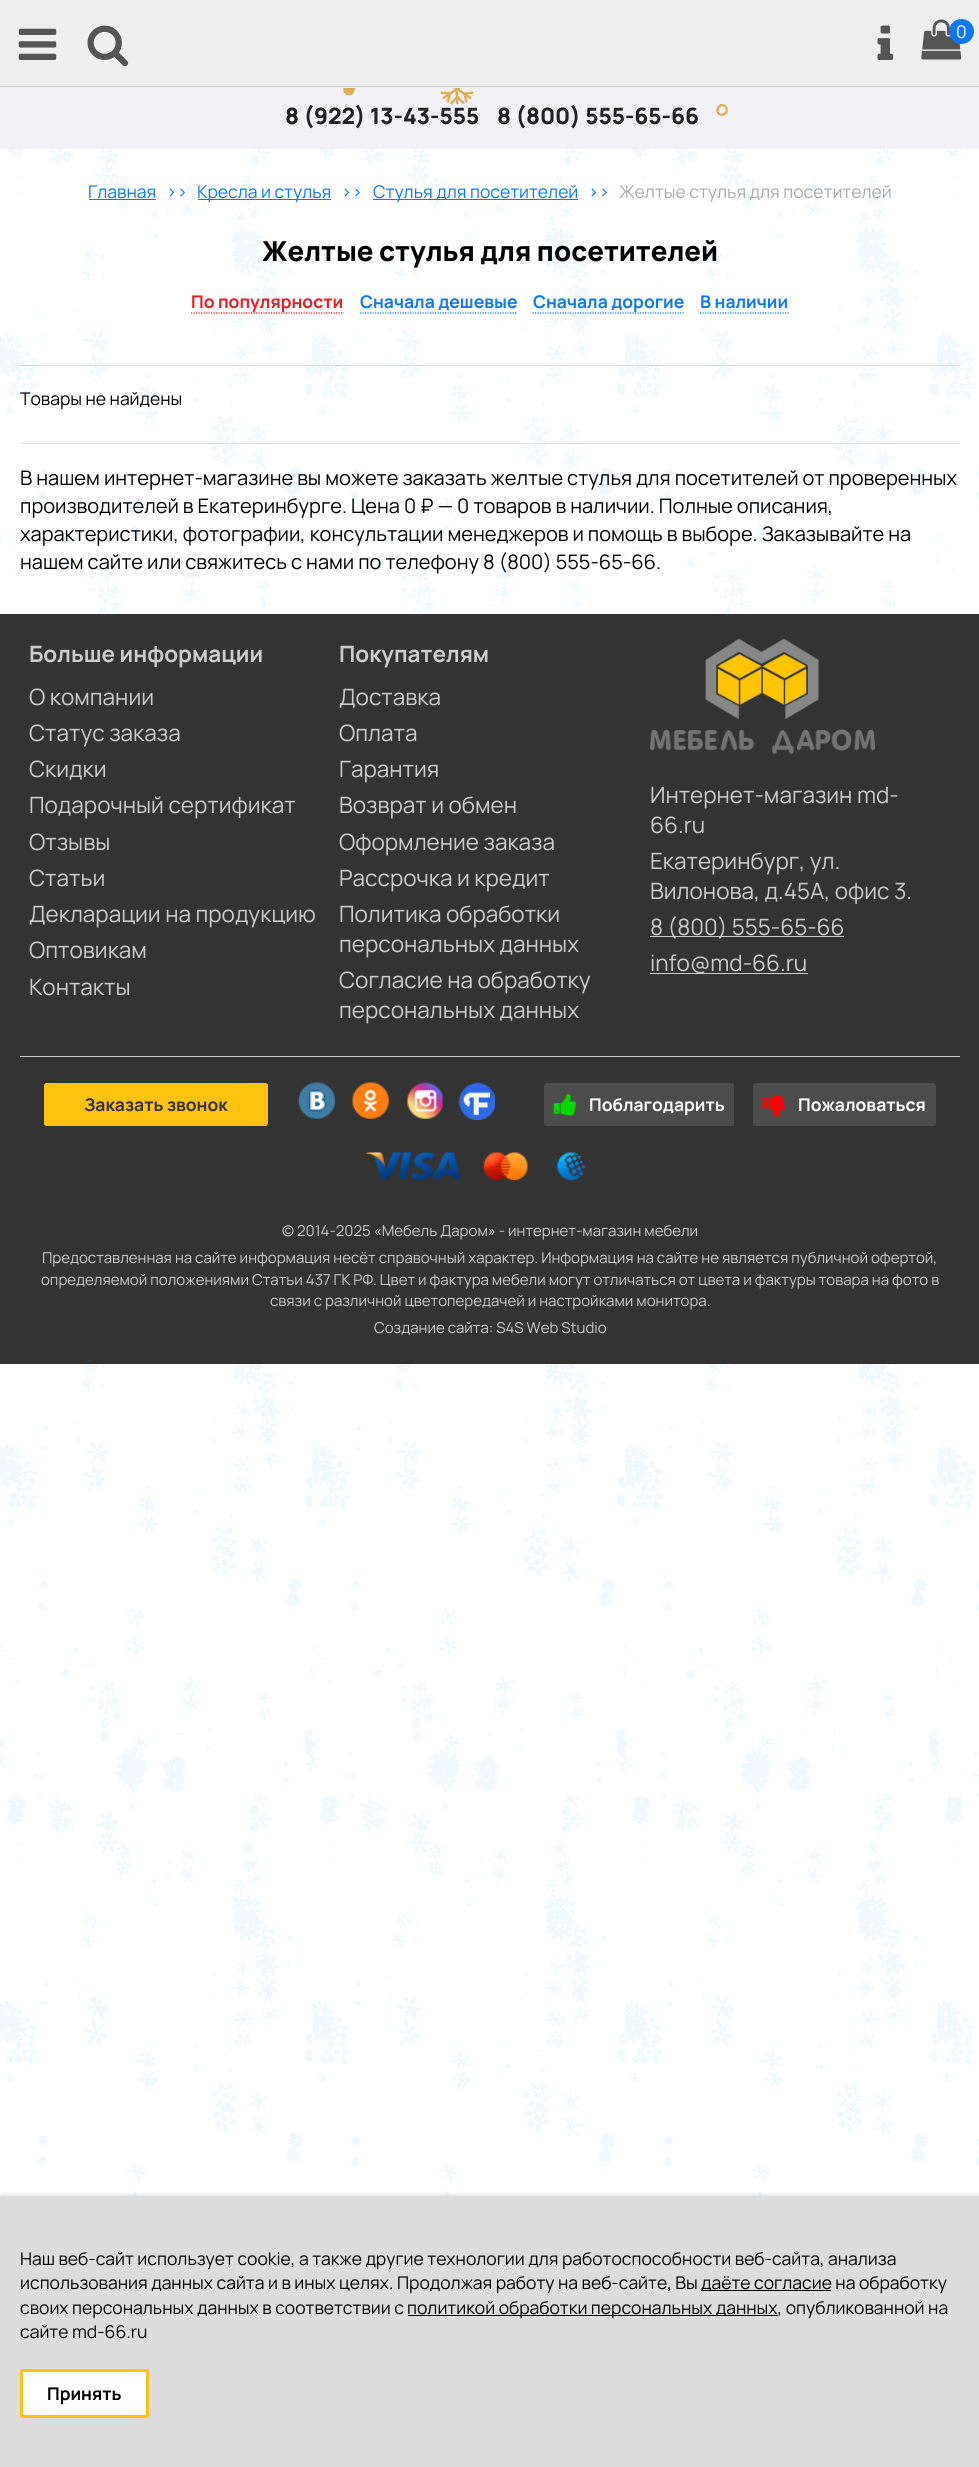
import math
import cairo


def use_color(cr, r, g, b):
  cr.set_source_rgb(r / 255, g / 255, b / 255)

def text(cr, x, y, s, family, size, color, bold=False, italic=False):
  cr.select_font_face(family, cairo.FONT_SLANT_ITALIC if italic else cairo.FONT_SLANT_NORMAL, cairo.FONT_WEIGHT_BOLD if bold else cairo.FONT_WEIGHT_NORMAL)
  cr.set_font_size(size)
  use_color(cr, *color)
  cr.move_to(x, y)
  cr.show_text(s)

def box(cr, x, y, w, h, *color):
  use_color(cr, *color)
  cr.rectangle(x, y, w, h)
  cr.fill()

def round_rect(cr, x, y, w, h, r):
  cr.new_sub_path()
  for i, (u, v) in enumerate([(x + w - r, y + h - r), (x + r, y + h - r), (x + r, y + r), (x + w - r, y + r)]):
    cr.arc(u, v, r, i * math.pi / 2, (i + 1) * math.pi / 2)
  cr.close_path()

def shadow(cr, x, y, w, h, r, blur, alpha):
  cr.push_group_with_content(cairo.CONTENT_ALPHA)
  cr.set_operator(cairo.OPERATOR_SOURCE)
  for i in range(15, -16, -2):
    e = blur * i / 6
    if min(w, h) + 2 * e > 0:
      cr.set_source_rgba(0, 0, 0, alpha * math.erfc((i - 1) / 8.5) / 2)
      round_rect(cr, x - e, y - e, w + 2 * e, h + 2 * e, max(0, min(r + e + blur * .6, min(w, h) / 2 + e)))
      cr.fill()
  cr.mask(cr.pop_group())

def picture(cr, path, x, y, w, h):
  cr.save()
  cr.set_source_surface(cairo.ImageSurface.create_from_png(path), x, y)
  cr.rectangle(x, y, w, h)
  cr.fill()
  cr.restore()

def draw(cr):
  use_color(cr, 255, 255, 255)
  cr.paint()
  picture(cr, "img_01.png", 0, 148, 979, 2034)
  picture(cr, "img_02.png", 0, 148, 979, 2048)
  box(cr, 0, 0, 979, 88, 239, 239, 239)
  box(cr, 0, 86, 979, 1, 204, 204, 204)
  picture(cr, "img_03.png", 18, 28, 39, 32)
  picture(cr, "img_04.png", 87, 25, 42, 42)
  picture(cr, "img_05.png", 877, 25, 17, 35)
  picture(cr, "img_06.png", 921, 19, 41, 41)
  use_color(cr, 13, 119, 250)
  cr.arc(961.5, 31.5, 12.5, 0, 2 * math.pi)
  cr.fill()
  picture(cr, "img_07.png", 0, 88, 979, 61)
  box(cr, 89, 199, 67, 1, 13, 119, 250)
  box(cr, 198, 199, 133, 1, 13, 119, 250)
  box(cr, 373, 199, 205, 1, 13, 119, 250)
  cr.new_path()
  cr.move_to(191, 313)
  cr.line_to(344, 313)
  use_color(cr, 233, 28, 34)
  cr.set_line_width(1.2)
  cr.set_dash([1.25, 1.25])
  cr.stroke()
  cr.new_path()
  cr.move_to(360, 313)
  cr.line_to(517.5, 313)
  use_color(cr, 13, 119, 250)
  cr.stroke()
  cr.new_path()
  cr.move_to(532.5, 313)
  cr.line_to(685, 313)
  cr.stroke()
  cr.new_path()
  cr.move_to(700, 313)
  cr.line_to(789, 313)
  cr.stroke()
  box(cr, 20, 365, 940, 1, 221, 221, 221)
  box(cr, 20, 443, 940, 1, 221, 221, 221)
  box(cr, 0, 614, 979, 750, 51, 51, 51)
  picture(cr, "img_08.png", 650, 638, 225, 116)
  box(cr, 650, 936, 194, 1, 204, 204, 204)
  box(cr, 650, 973, 158, 1, 204, 204, 204)
  box(cr, 20, 1056, 940, 1, 204, 204, 204)
  use_color(cr, 254, 194, 17)
  round_rect(cr, 45.5, 1084.5, 221, 40, 1)
  cr.fill_preserve()
  cr.set_line_width(3)
  cr.set_dash([])
  cr.stroke()
  picture(cr, "img_09.png", 298, 1082, 37, 37)
  picture(cr, "img_10.png", 352, 1082, 37, 37)
  picture(cr, "img_11.png", 407, 1082, 36, 37)
  picture(cr, "img_12.png", 458, 1082, 37, 38)
  use_color(cr, 76, 76, 76)
  round_rect(cr, 544, 1083, 190, 43, 2.5)
  cr.fill()
  picture(cr, "img_13.png", 553, 1094, 23, 22)
  round_rect(cr, 753, 1083, 183, 43, 2.5)
  cr.fill()
  picture(cr, "img_14.png", 762, 1095, 23, 23)
  picture(cr, "img_15.png", 366, 1152, 220, 29)
  use_color(cr, 0, 0, 0)
  shadow(cr, 1, 2195, 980, 271, 0, 2, 0.15)
  box(cr, 0, 2196, 979, 271, 221, 221, 221)
  box(cr, 701, 2290, 130, 1, 0, 0, 0)
  box(cr, 408, 2315, 370, 1, 0, 0, 0)
  use_color(cr, 255, 255, 255)
  round_rect(cr, 21.5, 2370.5, 126, 46, 1)
  cr.fill_preserve()
  use_color(cr, 254, 194, 17)
  cr.stroke()
  text(cr, 956, 38, "0", "Manrope", 17.5, (255, 255, 255))
  text(cr, 285, 124, "8 (922) 13-43-555", "Manrope ExtraBold", 22.5, (34, 34, 34))
  text(cr, 497, 124, "8 (800) 555-65-66", "Manrope ExtraBold", 22.5, (34, 34, 34))
  text(cr, 88, 198, "Главная", "Manrope", 17.5, (13, 119, 250))
  text(cr, 166, 198, ">>", "Manrope", 17.5, (13, 119, 250))
  text(cr, 197, 198, "Кресла и стулья", "Manrope", 17.5, (13, 119, 250))
  text(cr, 341, 198, ">>", "Manrope", 17.5, (13, 119, 250))
  text(cr, 373, 198, "Стулья для посетителей", "Manrope", 17.5, (13, 119, 250))
  text(cr, 588, 198, ">>", "Manrope", 17.5, (13, 119, 250))
  text(cr, 619, 198, "Желтые стулья для посетителей", "Manrope", 17.5, (170, 170, 170))
  text(cr, 262, 261, "Желтые стулья для посетителей", "Manrope ExtraBold", 27.5, (0, 0, 0))
  text(cr, 191, 308, "По популярности", "Manrope", 17.5, (233, 28, 34), bold=True)
  text(cr, 360, 308, "Сначала дешевые", "Manrope", 17.5, (13, 119, 250), bold=True)
  text(cr, 533, 308, "Сначала дорогие", "Manrope", 17.5, (13, 119, 250), bold=True)
  text(cr, 700, 308, "В наличии", "Manrope", 17.5, (13, 119, 250), bold=True)
  text(cr, 20, 405, "Товары не найдены", "Manrope", 17.5, (0, 0, 0))
  text(cr, 20, 485, "В нашем интернет-магазине вы можете заказать желтые стулья для посетителей от проверенных", "Manrope", 20, (0, 0, 0))
  text(cr, 20, 513, "производителей в Екатеринбурге. Цена 0 ₽ — 0 товаров в наличии. Полные описания,", "Manrope", 20, (0, 0, 0))
  text(cr, 20, 541, "характеристики, фотографии, консультации менеджеров и помощь в выборе. Заказывайте на", "Manrope", 20, (0, 0, 0))
  text(cr, 20, 569, "нашем сайте или свяжитесь с нами по телефону 8 (800) 555-65-66.", "Manrope", 20, (0, 0, 0))
  text(cr, 29, 662, "Больше информации", "Manrope", 22.5, (204, 204, 204), bold=True)
  text(cr, 29, 705, "О компании", "Manrope", 22.5, (204, 204, 204))
  text(cr, 29, 741, "Статус заказа", "Manrope", 22.5, (204, 204, 204))
  text(cr, 29, 777, "Скидки", "Manrope", 22.5, (204, 204, 204))
  text(cr, 29, 813, "Подарочный сертификат", "Manrope", 22.5, (204, 204, 204))
  text(cr, 29, 850, "Отзывы", "Manrope", 22.5, (204, 204, 204))
  text(cr, 29, 886, "Статьи", "Manrope", 22.5, (204, 204, 204))
  text(cr, 29, 922, "Декларации на продукцию", "Manrope", 22.5, (204, 204, 204))
  text(cr, 29, 958, "Оптовикам", "Manrope", 22.5, (204, 204, 204))
  text(cr, 29, 995, "Контакты", "Manrope", 22.5, (204, 204, 204))
  text(cr, 339, 662, "Покупателям", "Manrope", 22.5, (204, 204, 204), bold=True)
  text(cr, 339, 705, "Доставка", "Manrope", 22.5, (204, 204, 204))
  text(cr, 339, 741, "Оплата", "Manrope", 22.5, (204, 204, 204))
  text(cr, 339, 777, "Гарантия", "Manrope", 22.5, (204, 204, 204))
  text(cr, 339, 813, "Возврат и обмен", "Manrope", 22.5, (204, 204, 204))
  text(cr, 339, 850, "Оформление заказа", "Manrope", 22.5, (204, 204, 204))
  text(cr, 339, 886, "Рассрочка и кредит", "Manrope", 22.5, (204, 204, 204))
  text(cr, 339, 922, "Политика обработки", "Manrope", 22.5, (204, 204, 204))
  text(cr, 339, 952, "персональных данных", "Manrope", 22.5, (204, 204, 204))
  text(cr, 339, 988, "Согласие на обработку", "Manrope", 22.5, (204, 204, 204))
  text(cr, 339, 1018, "персональных данных", "Manrope", 22.5, (204, 204, 204))
  text(cr, 650, 803, "Интернет-магазин md-", "Manrope", 22.5, (204, 204, 204))
  text(cr, 650, 833, "66.ru", "Manrope", 22.5, (204, 204, 204))
  text(cr, 650, 869, "Екатеринбург, ул.", "Manrope", 22.5, (204, 204, 204))
  text(cr, 650, 899, "Вилонова, д.45А, офис 3.", "Manrope", 22.5, (204, 204, 204))
  text(cr, 650, 935, "8 (800) 555-65-66", "Manrope", 22.5, (204, 204, 204))
  text(cr, 650, 971, "info@md-66.ru", "Manrope", 22.5, (204, 204, 204))
  text(cr, 84, 1111, "Заказать звонок", "Manrope", 17.5, (51, 51, 51), bold=True)
  text(cr, 589, 1111, "Поблагодарить", "Manrope", 17.5, (255, 255, 255), bold=True)
  text(cr, 798, 1111, "Пожаловаться", "Manrope", 17.5, (255, 255, 255), bold=True)
  text(cr, 282, 1236, "© 2014-2025 «Мебель Даром» - интернет-магазин мебели", "Manrope", 15, (204, 204, 204))
  text(cr, 42, 1263, "Предоставленная на сайте информация несёт справочный характер. Информация на сайте не является публичной офертой,", "Manrope", 15, (204, 204, 204))
  text(cr, 41, 1285, "определяемой положениями Статьи 437 ГК РФ. Цвет и фактура мебели могут отличаться от цвета и фактуры товара на фото в", "Manrope", 15, (204, 204, 204))
  text(cr, 270, 1306, "связи с различной цветопередачей и настройками монитора.", "Manrope", 15, (204, 204, 204))
  text(cr, 374, 1333, "Создание сайта: S4S Web Studio", "Manrope", 15, (204, 204, 204))
  text(cr, 20, 2265, "Наш веб-сайт использует cookie, а также другие технологии для работоспособности веб-сайта, анализа", "Manrope", 17.5, (0, 0, 0))
  text(cr, 20, 2289, "использования данных сайта и в иных целях. Продолжая работу на веб-сайте, Вы", "Manrope", 17.5, (0, 0, 0))
  text(cr, 701, 2289, "даёте согласие на обработку", "Manrope", 17.5, (0, 0, 0))
  text(cr, 20, 2314, "своих персональных данных в соответствии с", "Manrope", 17.5, (0, 0, 0))
  text(cr, 407, 2314, "политикой обработки персональных данных, опубликованной на", "Manrope", 17.5, (0, 0, 0))
  text(cr, 20, 2338, "сайте md-66.ru", "Manrope", 17.5, (0, 0, 0))
  text(cr, 47, 2400, "Принять", "Manrope", 17.5, (0, 0, 0), bold=True)


surface = cairo.ImageSurface(cairo.FORMAT_RGB24, 979, 2467)
cr = cairo.Context(surface)
options = cairo.FontOptions()
options.set_hint_metrics(cairo.HINT_METRICS_OFF)
options.set_hint_style(cairo.HINT_STYLE_NONE)
cr.set_font_options(options)
cr.set_miter_limit(4)
draw(cr)
surface.write_to_png("out.png")
